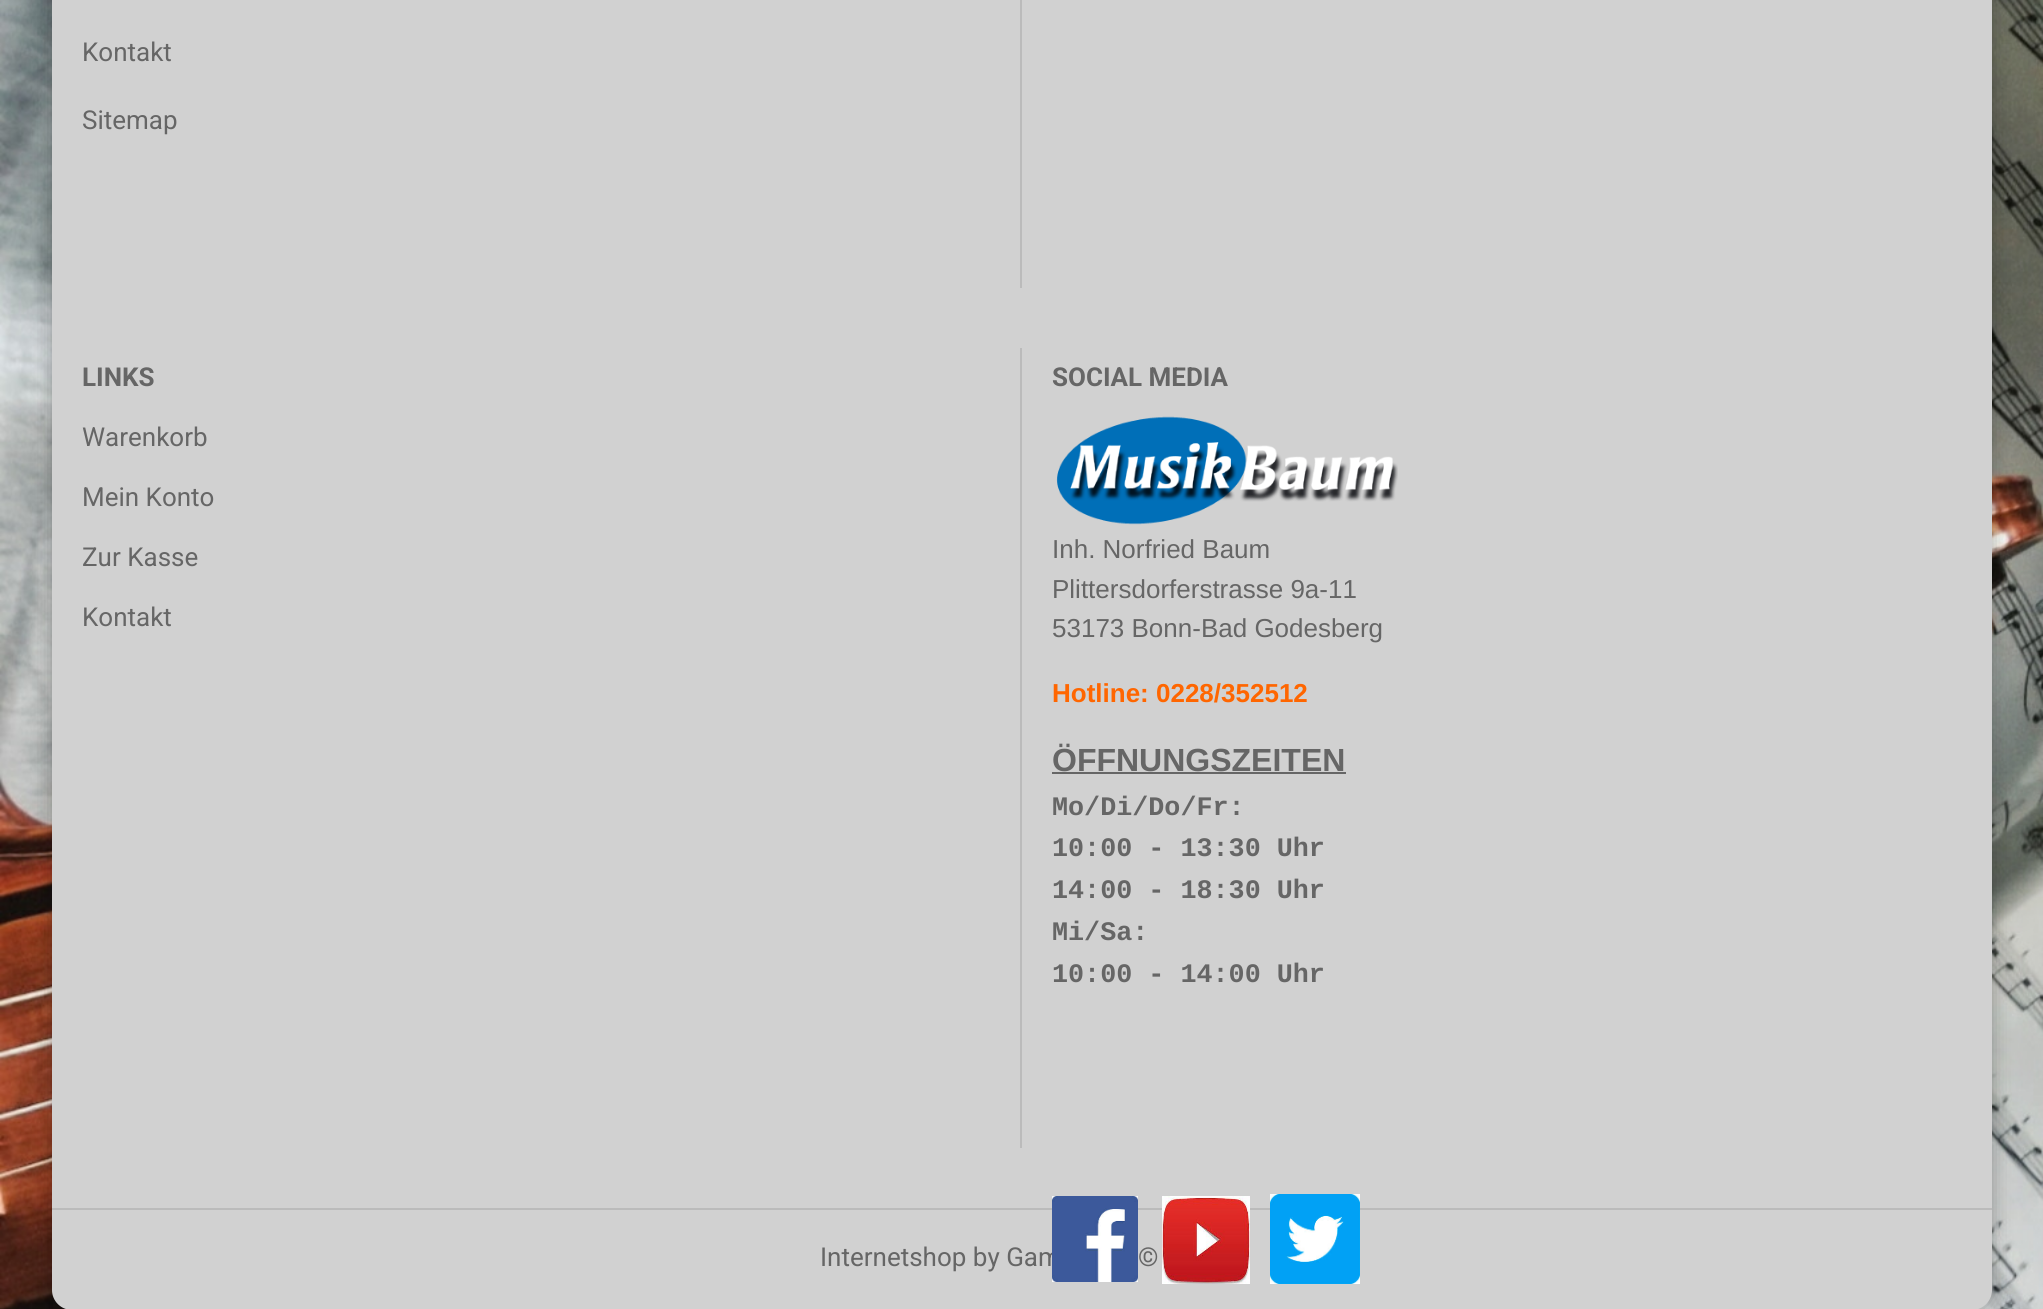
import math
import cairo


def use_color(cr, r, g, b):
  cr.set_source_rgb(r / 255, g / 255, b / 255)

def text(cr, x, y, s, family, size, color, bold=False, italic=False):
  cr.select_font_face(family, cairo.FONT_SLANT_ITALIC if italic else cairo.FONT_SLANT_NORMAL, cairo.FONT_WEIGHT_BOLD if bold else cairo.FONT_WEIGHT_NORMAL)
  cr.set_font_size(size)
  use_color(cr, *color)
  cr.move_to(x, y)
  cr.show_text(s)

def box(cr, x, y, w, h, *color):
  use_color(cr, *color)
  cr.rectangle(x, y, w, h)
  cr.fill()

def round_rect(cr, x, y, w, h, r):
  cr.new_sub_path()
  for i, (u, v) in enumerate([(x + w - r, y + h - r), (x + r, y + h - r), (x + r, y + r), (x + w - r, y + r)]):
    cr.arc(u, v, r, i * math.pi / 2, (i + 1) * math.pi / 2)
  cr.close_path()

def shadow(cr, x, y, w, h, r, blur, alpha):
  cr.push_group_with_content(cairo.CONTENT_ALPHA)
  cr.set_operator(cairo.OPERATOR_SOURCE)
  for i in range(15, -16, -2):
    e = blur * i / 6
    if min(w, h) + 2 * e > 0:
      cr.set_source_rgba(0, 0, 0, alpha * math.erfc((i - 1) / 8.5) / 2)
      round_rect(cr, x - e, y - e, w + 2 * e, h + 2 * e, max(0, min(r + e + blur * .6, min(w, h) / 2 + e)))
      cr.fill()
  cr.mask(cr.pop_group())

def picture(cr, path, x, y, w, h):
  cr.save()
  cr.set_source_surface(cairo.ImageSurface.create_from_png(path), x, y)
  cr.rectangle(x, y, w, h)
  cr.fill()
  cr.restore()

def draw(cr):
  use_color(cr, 255, 255, 255)
  cr.paint()
  picture(cr, "img_01.png", 0, 0, 2043, 1309)
  use_color(cr, 0, 0, 0)
  shadow(cr, 52, -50, 1940, 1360, 20, 10, 0.3)
  use_color(cr, 209, 209, 209)
  cr.new_path()
  cr.move_to(52, -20)
  cr.line_to(1992, -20)
  cr.line_to(1992, 1290)
  cr.curve_to(1992, 1301, 1983, 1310, 1972, 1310)
  cr.line_to(72, 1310)
  cr.curve_to(61, 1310, 52, 1301, 52, 1290)
  cr.close_path()
  cr.fill()
  box(cr, 52, 1208, 1940, 2, 187, 187, 187)
  box(cr, 1020, 0, 2, 288, 187, 187, 187)
  box(cr, 1020, 348, 2, 800, 187, 187, 187)
  picture(cr, "img_02.png", 1056, 416, 342, 109)
  box(cr, 1052, 772, 294, 2, 102, 102, 102)
  picture(cr, "img_04.png", 1162, 1196, 88, 88)
  picture(cr, "img_05.png", 1270, 1194, 90, 90)
  text(cr, 82, 61, "Kontakt", "Roboto", 26, (102, 102, 102))
  text(cr, 82, 129, "Sitemap", "Roboto", 26, (102, 102, 102))
  text(cr, 82, 386, "LINKS", "Roboto", 26, (102, 102, 102), bold=True)
  text(cr, 82, 446, "Warenkorb", "Roboto", 26, (102, 102, 102))
  text(cr, 82, 506, "Mein Konto", "Roboto", 26, (102, 102, 102))
  text(cr, 82, 566, "Zur Kasse", "Roboto", 26, (102, 102, 102))
  text(cr, 82, 626, "Kontakt", "Roboto", 26, (102, 102, 102))
  text(cr, 1052, 386, "SOCIAL MEDIA", "Roboto", 26, (102, 102, 102), bold=True)
  text(cr, 1052, 558, "Inh. Norfried Baum", "Liberation Sans", 26, (102, 102, 102))
  text(cr, 1052, 598, "Plittersdorferstrasse 9a-11", "Liberation Sans", 26, (102, 102, 102))
  text(cr, 1052, 637, "53173 Bonn-Bad Godesberg", "Liberation Sans", 26, (102, 102, 102))
  text(cr, 1052, 702, "Hotline: 0228/352512", "Liberation Sans", 26, (255, 102, 0), bold=True)
  text(cr, 1052, 771, "ÖFFNUNGSZEITEN", "Liberation Sans", 32, (102, 102, 102), bold=True)
  text(cr, 1052, 815, "Mo/Di/Do/Fr:", "Liberation Mono", 26.75, (102, 102, 102), bold=True)
  text(cr, 1052, 856, "10:00 - 13:30 Uhr", "Liberation Mono", 26.75, (102, 102, 102), bold=True)
  text(cr, 1052, 898, "14:00 - 18:30 Uhr", "Liberation Mono", 26.75, (102, 102, 102), bold=True)
  text(cr, 1052, 940, "Mi/Sa:", "Liberation Mono", 26.75, (102, 102, 102), bold=True)
  text(cr, 1052, 982, "10:00 - 14:00 Uhr", "Liberation Mono", 26.75, (102, 102, 102), bold=True)
  text(cr, 820, 1266, "Internetshop by Gam", "Roboto", 26, (102, 102, 102))
  picture(cr, "img_03.png", 1052, 1196, 86, 86)
  text(cr, 1138, 1266, "©", "Roboto", 26, (102, 102, 102))


surface = cairo.ImageSurface(cairo.FORMAT_RGB24, 2043, 1309)
cr = cairo.Context(surface)
options = cairo.FontOptions()
options.set_hint_metrics(cairo.HINT_METRICS_OFF)
options.set_hint_style(cairo.HINT_STYLE_NONE)
cr.set_font_options(options)
cr.set_miter_limit(4)
draw(cr)
surface.write_to_png("out.png")
